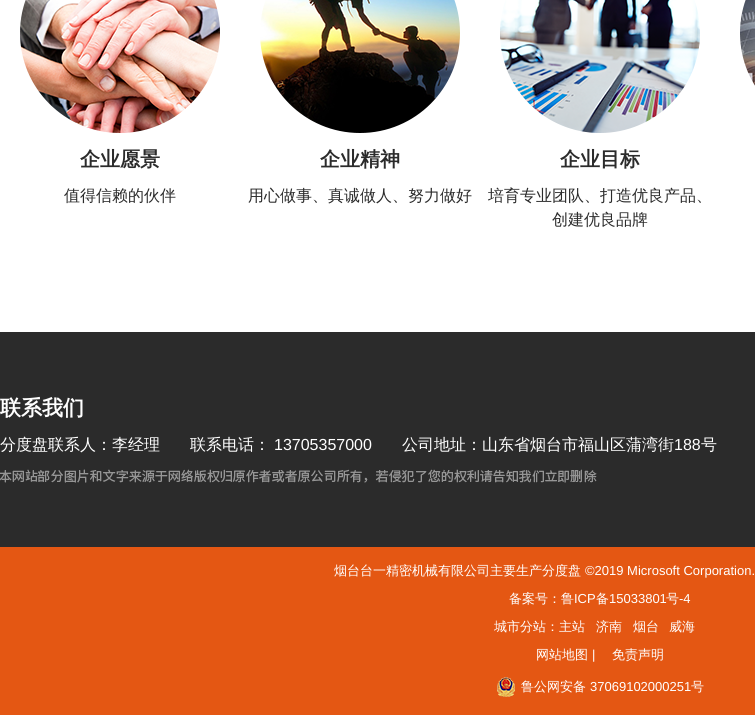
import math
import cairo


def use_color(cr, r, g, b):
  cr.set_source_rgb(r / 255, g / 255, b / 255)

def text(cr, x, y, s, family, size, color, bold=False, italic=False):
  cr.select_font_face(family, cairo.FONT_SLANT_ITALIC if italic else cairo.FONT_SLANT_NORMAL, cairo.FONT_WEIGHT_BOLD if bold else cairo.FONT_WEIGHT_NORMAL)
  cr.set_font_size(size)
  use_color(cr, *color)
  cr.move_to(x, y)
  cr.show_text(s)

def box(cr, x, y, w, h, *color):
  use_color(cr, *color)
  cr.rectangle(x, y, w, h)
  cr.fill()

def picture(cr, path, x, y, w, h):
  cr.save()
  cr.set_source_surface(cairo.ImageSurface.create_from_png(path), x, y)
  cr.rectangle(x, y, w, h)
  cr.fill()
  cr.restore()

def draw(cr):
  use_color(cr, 255, 255, 255)
  cr.paint()
  picture(cr, "img_01.png", 740, 0, 15, 86)
  picture(cr, "img_02.png", 20, 0, 200, 133)
  picture(cr, "img_03.png", 260, 0, 200, 133)
  picture(cr, "img_04.png", 500, 0, 200, 133)
  box(cr, 0, 332, 755, 215, 43, 43, 43)
  picture(cr, "img_05.png", 0, 469, 597, 14)
  box(cr, 0, 547, 755, 168, 228, 87, 19)
  picture(cr, "img_06.png", 497, 677, 18, 20)
  text(cr, 80, 166, "企业愿景", "WenQuanYi Zen Hei", 20, (43, 43, 43), bold=True)
  text(cr, 64, 201, "值得信赖的伙伴", "WenQuanYi Zen Hei Medium", 16, (43, 43, 43))
  text(cr, 320, 166, "企业精神", "WenQuanYi Zen Hei", 20, (43, 43, 43), bold=True)
  text(cr, 248, 201, "用心做事、真诚做人、努力做好", "WenQuanYi Zen Hei Medium", 16, (43, 43, 43))
  text(cr, 560, 166, "企业目标", "WenQuanYi Zen Hei", 20, (43, 43, 43), bold=True)
  text(cr, 488, 201, "培育专业团队、打造优良产品、", "WenQuanYi Zen Hei Medium", 16, (43, 43, 43))
  text(cr, 552, 225, "创建优良品牌", "WenQuanYi Zen Hei Medium", 16, (43, 43, 43))
  text(cr, 0, 415, "联系我们", "WenQuanYi Zen Hei", 21, (255, 255, 255), bold=True)
  text(cr, 0, 450, "分度盘联系人：李经理", "WenQuanYi Zen Hei Medium", 16, (255, 255, 255))
  text(cr, 190, 450, "联系电话：", "WenQuanYi Zen Hei Medium", 16, (255, 255, 255))
  text(cr, 274, 450, "13705357000", "Liberation Sans", 16, (255, 255, 255))
  text(cr, 402, 450, "公司地址：山东省烟台市福山区蒲湾街", "WenQuanYi Zen Hei Medium", 16, (255, 255, 255))
  text(cr, 674, 450, "188", "Liberation Sans", 16, (255, 255, 255))
  text(cr, 701, 450, "号", "WenQuanYi Zen Hei Medium", 16, (255, 255, 255))
  text(cr, 334, 575, "烟台台一精密机械有限公司主要生产分度盘", "WenQuanYi Zen Hei Medium", 13, (255, 255, 255))
  text(cr, 585, 575, "©2019 Microsoft Corporation.", "Liberation Sans", 13, (255, 255, 255))
  text(cr, 509, 603, "备案号：鲁", "WenQuanYi Zen Hei Medium", 13, (255, 255, 255))
  text(cr, 574, 603, "ICP", "Liberation Sans", 13, (255, 255, 255))
  text(cr, 596, 603, "备", "WenQuanYi Zen Hei Medium", 13, (255, 255, 255))
  text(cr, 609, 603, "15033801", "Liberation Sans", 13, (255, 255, 255))
  text(cr, 666, 603, "号", "WenQuanYi Zen Hei Medium", 13, (255, 255, 255))
  text(cr, 679, 603, "-4", "Liberation Sans", 13, (255, 255, 255))
  text(cr, 494, 631, "城市分站：主站", "WenQuanYi Zen Hei Medium", 13, (255, 255, 255))
  text(cr, 596, 631, "济南", "WenQuanYi Zen Hei Medium", 13, (255, 255, 255))
  text(cr, 633, 631, "烟台", "WenQuanYi Zen Hei Medium", 13, (255, 255, 255))
  text(cr, 669, 631, "威海", "WenQuanYi Zen Hei Medium", 13, (255, 255, 255))
  text(cr, 536, 659, "网站地图", "WenQuanYi Zen Hei Medium", 13, (255, 255, 255))
  text(cr, 592, 659, "|", "Liberation Sans", 13, (255, 255, 255))
  text(cr, 612, 659, "免责声明", "WenQuanYi Zen Hei Medium", 13, (255, 255, 255))
  text(cr, 521, 691, "鲁公网安备", "WenQuanYi Zen Hei Medium", 13, (255, 255, 255))
  text(cr, 590, 691, "37069102000251", "Liberation Sans", 13, (255, 255, 255))
  text(cr, 691, 691, "号", "WenQuanYi Zen Hei Medium", 13, (255, 255, 255))


surface = cairo.ImageSurface(cairo.FORMAT_RGB24, 755, 715)
cr = cairo.Context(surface)
options = cairo.FontOptions()
options.set_hint_metrics(cairo.HINT_METRICS_OFF)
options.set_hint_style(cairo.HINT_STYLE_NONE)
cr.set_font_options(options)
cr.set_miter_limit(4)
draw(cr)
surface.write_to_png("out.png")
